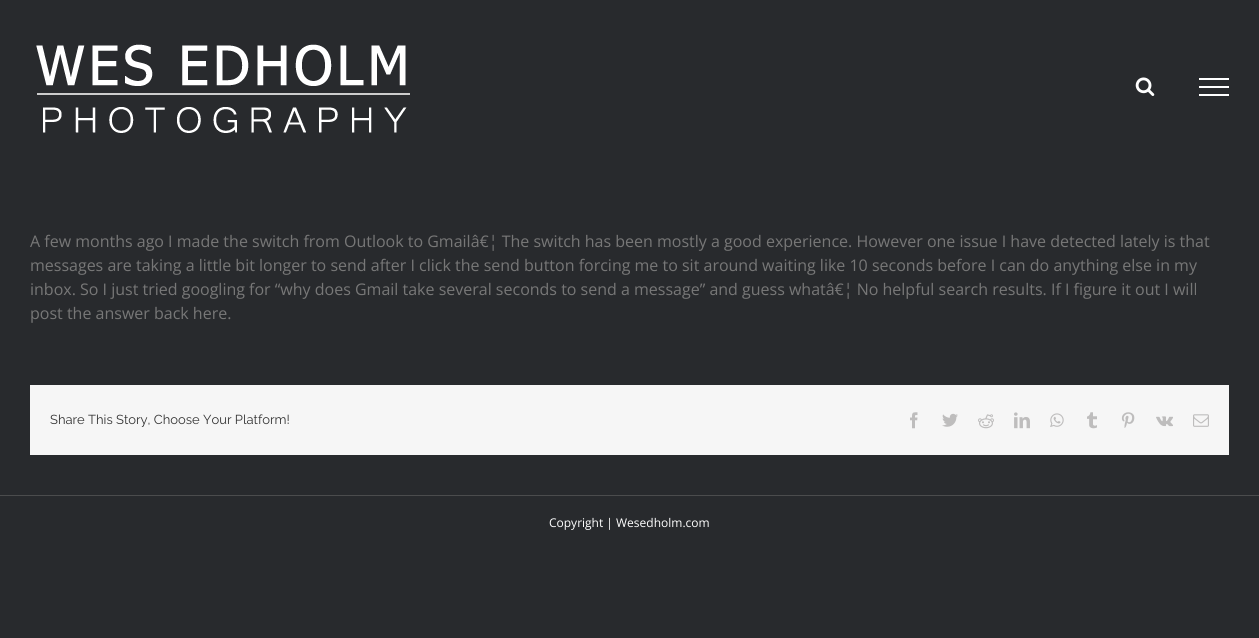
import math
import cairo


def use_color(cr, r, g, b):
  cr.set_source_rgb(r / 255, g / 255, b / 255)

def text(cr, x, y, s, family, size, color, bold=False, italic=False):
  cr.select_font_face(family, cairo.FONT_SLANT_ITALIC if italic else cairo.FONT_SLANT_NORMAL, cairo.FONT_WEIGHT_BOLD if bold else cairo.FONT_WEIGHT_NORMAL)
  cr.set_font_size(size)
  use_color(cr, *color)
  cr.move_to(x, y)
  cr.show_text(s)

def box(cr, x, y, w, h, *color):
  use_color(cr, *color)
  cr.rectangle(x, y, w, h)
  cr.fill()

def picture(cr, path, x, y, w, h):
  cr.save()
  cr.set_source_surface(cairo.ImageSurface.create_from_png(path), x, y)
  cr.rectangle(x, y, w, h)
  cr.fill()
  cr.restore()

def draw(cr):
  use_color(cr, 40, 42, 45)
  cr.paint()
  picture(cr, "img_01.png", 36, 44, 374, 89)
  picture(cr, "img_02.png", 1135, 77, 20, 19)
  box(cr, 1199, 78, 30, 2, 255, 255, 255)
  box(cr, 1199, 86, 30, 2, 255, 255, 255)
  box(cr, 1199, 94, 30, 2, 255, 255, 255)
  box(cr, 30, 385, 1199, 70, 246, 246, 246)
  picture(cr, "img_03.png", 910, 412, 8, 17)
  picture(cr, "img_04.png", 942, 413, 16, 14)
  picture(cr, "img_05.png", 978, 414, 16, 15)
  picture(cr, "img_06.png", 1014, 412, 16, 17)
  picture(cr, "img_07.png", 1050, 413, 14, 14)
  picture(cr, "img_08.png", 1087, 412, 10, 17)
  picture(cr, "img_09.png", 1121, 412, 14, 16)
  picture(cr, "img_10.png", 1156, 416, 17, 11)
  picture(cr, "img_11.png", 1193, 414, 16, 13)
  box(cr, 0, 495, 1259, 1, 75, 76, 77)
  text(cr, 30, 247, "A few months ago I made the switch from Outlook to Gmailâ€¦ The switch has been mostly a good experience. However one issue I have detected lately is that", "Open Sans", 16, (119, 119, 119))
  text(cr, 30, 271, "messages are taking a little bit longer to send after I click the send button forcing me to sit around waiting like 10 seconds before I can do anything else in my", "Open Sans", 16, (119, 119, 119))
  text(cr, 30, 295, "inbox. So I just tried googling for “why does Gmail take several seconds to send a message” and guess whatâ€¦ No helpful search results. If I figure it out I will", "Open Sans", 16, (119, 119, 119))
  text(cr, 30, 319, "post the answer back here.", "Open Sans", 16, (119, 119, 119))
  text(cr, 50, 424, "Share This Story, Choose Your Platform!", "Raleway Thin", 13, (51, 51, 51))
  text(cr, 549, 527, "Copyright | Wesedholm.com", "Open Sans", 12, (255, 255, 255))


surface = cairo.ImageSurface(cairo.FORMAT_RGB24, 1259, 638)
cr = cairo.Context(surface)
options = cairo.FontOptions()
options.set_hint_metrics(cairo.HINT_METRICS_OFF)
options.set_hint_style(cairo.HINT_STYLE_NONE)
cr.set_font_options(options)
cr.set_miter_limit(4)
draw(cr)
surface.write_to_png("out.png")
